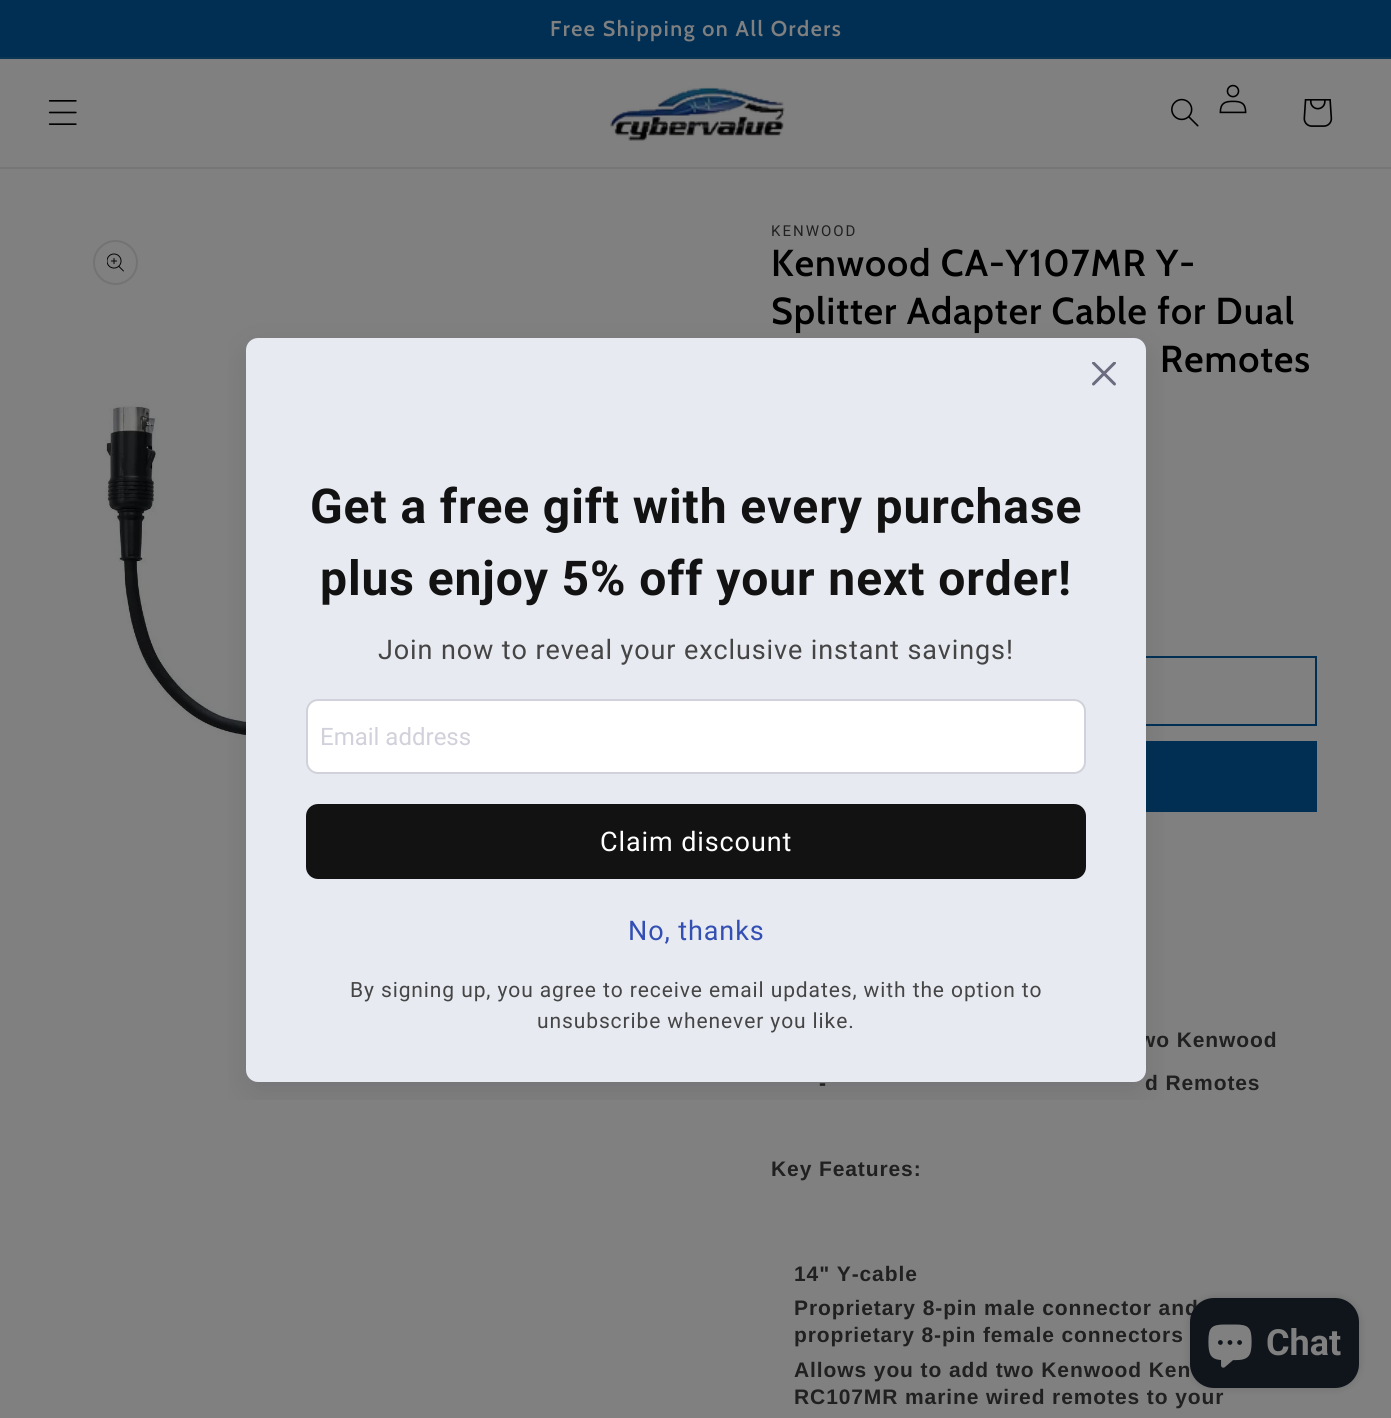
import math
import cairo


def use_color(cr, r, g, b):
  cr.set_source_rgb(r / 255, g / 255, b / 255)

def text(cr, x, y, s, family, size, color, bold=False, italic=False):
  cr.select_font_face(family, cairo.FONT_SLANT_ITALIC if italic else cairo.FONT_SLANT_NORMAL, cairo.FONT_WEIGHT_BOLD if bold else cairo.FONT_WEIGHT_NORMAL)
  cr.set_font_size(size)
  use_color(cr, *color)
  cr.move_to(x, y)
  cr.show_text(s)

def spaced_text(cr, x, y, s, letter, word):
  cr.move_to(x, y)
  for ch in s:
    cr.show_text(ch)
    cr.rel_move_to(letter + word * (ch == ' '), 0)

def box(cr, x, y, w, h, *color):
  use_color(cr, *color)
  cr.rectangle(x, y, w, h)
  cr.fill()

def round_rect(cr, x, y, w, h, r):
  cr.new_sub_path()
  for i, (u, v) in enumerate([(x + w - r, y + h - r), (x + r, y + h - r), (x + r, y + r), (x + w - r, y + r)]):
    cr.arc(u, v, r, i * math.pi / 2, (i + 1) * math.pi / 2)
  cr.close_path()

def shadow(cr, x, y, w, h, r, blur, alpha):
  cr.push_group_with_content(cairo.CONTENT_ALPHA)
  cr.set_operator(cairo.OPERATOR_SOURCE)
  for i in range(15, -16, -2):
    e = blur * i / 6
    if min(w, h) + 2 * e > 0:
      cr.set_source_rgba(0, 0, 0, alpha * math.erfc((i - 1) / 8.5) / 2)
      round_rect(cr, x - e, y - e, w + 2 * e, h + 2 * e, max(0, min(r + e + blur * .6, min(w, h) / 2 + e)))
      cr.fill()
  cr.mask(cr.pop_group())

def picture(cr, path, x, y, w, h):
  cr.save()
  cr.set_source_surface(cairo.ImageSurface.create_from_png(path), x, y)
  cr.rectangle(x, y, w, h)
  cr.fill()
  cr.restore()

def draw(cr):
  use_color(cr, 128, 128, 128)
  cr.paint()
  box(cr, 0, 0, 1391, 57, 1, 47, 83)
  box(cr, 0, 57, 1391, 2, 11, 54, 86)
  box(cr, 0, 167, 1391, 2, 118, 118, 118)
  picture(cr, "img_01.png", 48, 100, 29, 25)
  picture(cr, "img_02.png", 610, 87, 175, 54)
  picture(cr, "img_03.png", 1171, 98, 28, 29)
  picture(cr, "img_04.png", 1219, 84, 28, 30)
  picture(cr, "img_05.png", 1303, 99, 30, 28)
  cr.arc(115.5, 262.5, 21.5, 0, 2 * math.pi)
  use_color(cr, 115, 115, 115)
  cr.stroke()
  picture(cr, "img_06.png", 107, 253, 17, 19)
  picture(cr, "img_07.png", 105, 353, 141, 413)
  cr.rectangle(772, 657, 544, 68)
  use_color(cr, 1, 47, 83)
  cr.stroke()
  box(cr, 1146, 741, 171, 71, 1, 47, 83)
  cr.save()
  cr.rectangle(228, 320, 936, 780)
  cr.clip()
  use_color(cr, 18, 17, 39)
  shadow(cr, 246, 350, 900, 744, 12, 15, 0.1)
  cr.restore()
  use_color(cr, 0, 0, 0)
  shadow(cr, 1190, 1298, 169, 90, 24, 4, 0.15)
  cr.select_font_face("Cabin SemiBold")
  cr.set_font_size(21.5)
  use_color(cr, 128, 128, 128)
  spaced_text(cr, 550, 36, "Free Shipping on All Orders", 1.5, 0)
  cr.select_font_face("Roboto")
  cr.set_font_size(15)
  use_color(cr, 32, 32, 32)
  spaced_text(cr, 771, 236, "KENWOOD", 2, 0)
  cr.select_font_face("Cabin SemiBold")
  cr.set_font_size(37.5)
  use_color(cr, 0, 0, 0)
  spaced_text(cr, 771, 276, "Kenwood CA-Y107MR Y-", 1, 0)
  spaced_text(cr, 771, 324, "Splitter Adapter Cable for Dual", 1, 0)
  spaced_text(cr, 1160, 372, "Remotes", 1, 0)
  cr.select_font_face("Liberation Sans", cairo.FONT_SLANT_NORMAL, cairo.FONT_WEIGHT_BOLD)
  cr.set_font_size(21)
  use_color(cr, 32, 32, 32)
  spaced_text(cr, 1139, 1047, "wo Kenwood", 0.9, 0)
  spaced_text(cr, 819, 1090, "-", 0.9, 0)
  spaced_text(cr, 1145, 1090, "d Remotes", 0.9, 0)
  spaced_text(cr, 771, 1176, "Key Features:", 0.9, 0)
  spaced_text(cr, 794, 1281, "14\" Y-cable", 0.9, 0)
  spaced_text(cr, 794, 1315, "Proprietary 8-pin male connector and", 0.9, 0)
  spaced_text(cr, 794, 1342, "proprietary 8-pin female connectors", 0.9, 0)
  spaced_text(cr, 794, 1377, "Allows you to add two Kenwood Ken", 0.9, 0)
  spaced_text(cr, 794, 1404, "RC107MR marine wired remotes to your", 0.9, 0)
  use_color(cr, 231, 234, 241)
  round_rect(cr, 246, 338, 900, 744, 12)
  cr.fill()
  picture(cr, "img_08.png", 1092, 362, 24, 24)
  cr.select_font_face("Roboto", cairo.FONT_SLANT_NORMAL, cairo.FONT_WEIGHT_BOLD)
  cr.set_font_size(48)
  use_color(cr, 18, 18, 18)
  spaced_text(cr, 310, 523, "Get a free gift with every purchase", 0.9, 0)
  spaced_text(cr, 320, 595, "plus enjoy 5% off your next order!", 0.9, 0)
  cr.select_font_face("Roboto")
  cr.set_font_size(27)
  use_color(cr, 69, 69, 69)
  spaced_text(cr, 378, 659, "Join now to reveal your exclusive instant savings!", 0.9, 0)
  use_color(cr, 255, 255, 255)
  round_rect(cr, 307, 700, 778, 73, 11)
  cr.fill_preserve()
  use_color(cr, 209, 209, 219)
  cr.stroke()
  text(cr, 320, 745, "Email address", "Roboto", 24, (209, 209, 219))
  use_color(cr, 18, 18, 18)
  round_rect(cr, 306, 804, 780, 75, 12)
  cr.fill()
  cr.set_font_size(27)
  use_color(cr, 255, 255, 255)
  spaced_text(cr, 600, 851, "Claim discount", 0.9, 0)
  use_color(cr, 51, 79, 180)
  spaced_text(cr, 628, 940, "No, thanks", 0.9, 0)
  cr.set_font_size(21)
  use_color(cr, 69, 69, 69)
  spaced_text(cr, 350, 997, "By signing up, you agree to receive email updates, with the option to", 0.9, 0)
  spaced_text(cr, 537, 1028, "unsubscribe whenever you like.", 0.9, 0)
  use_color(cr, 16, 21, 27)
  round_rect(cr, 1190, 1298, 169, 90, 24)
  cr.fill()
  picture(cr, "img_09.png", 1208, 1324, 44, 44)
  text(cr, 1266, 1355, "Chat", "Roboto", 36, (128, 128, 128), bold=True)


surface = cairo.ImageSurface(cairo.FORMAT_RGB24, 1391, 1418)
cr = cairo.Context(surface)
options = cairo.FontOptions()
options.set_hint_metrics(cairo.HINT_METRICS_OFF)
options.set_hint_style(cairo.HINT_STYLE_NONE)
cr.set_font_options(options)
cr.set_miter_limit(4)
draw(cr)
surface.write_to_png("out.png")
